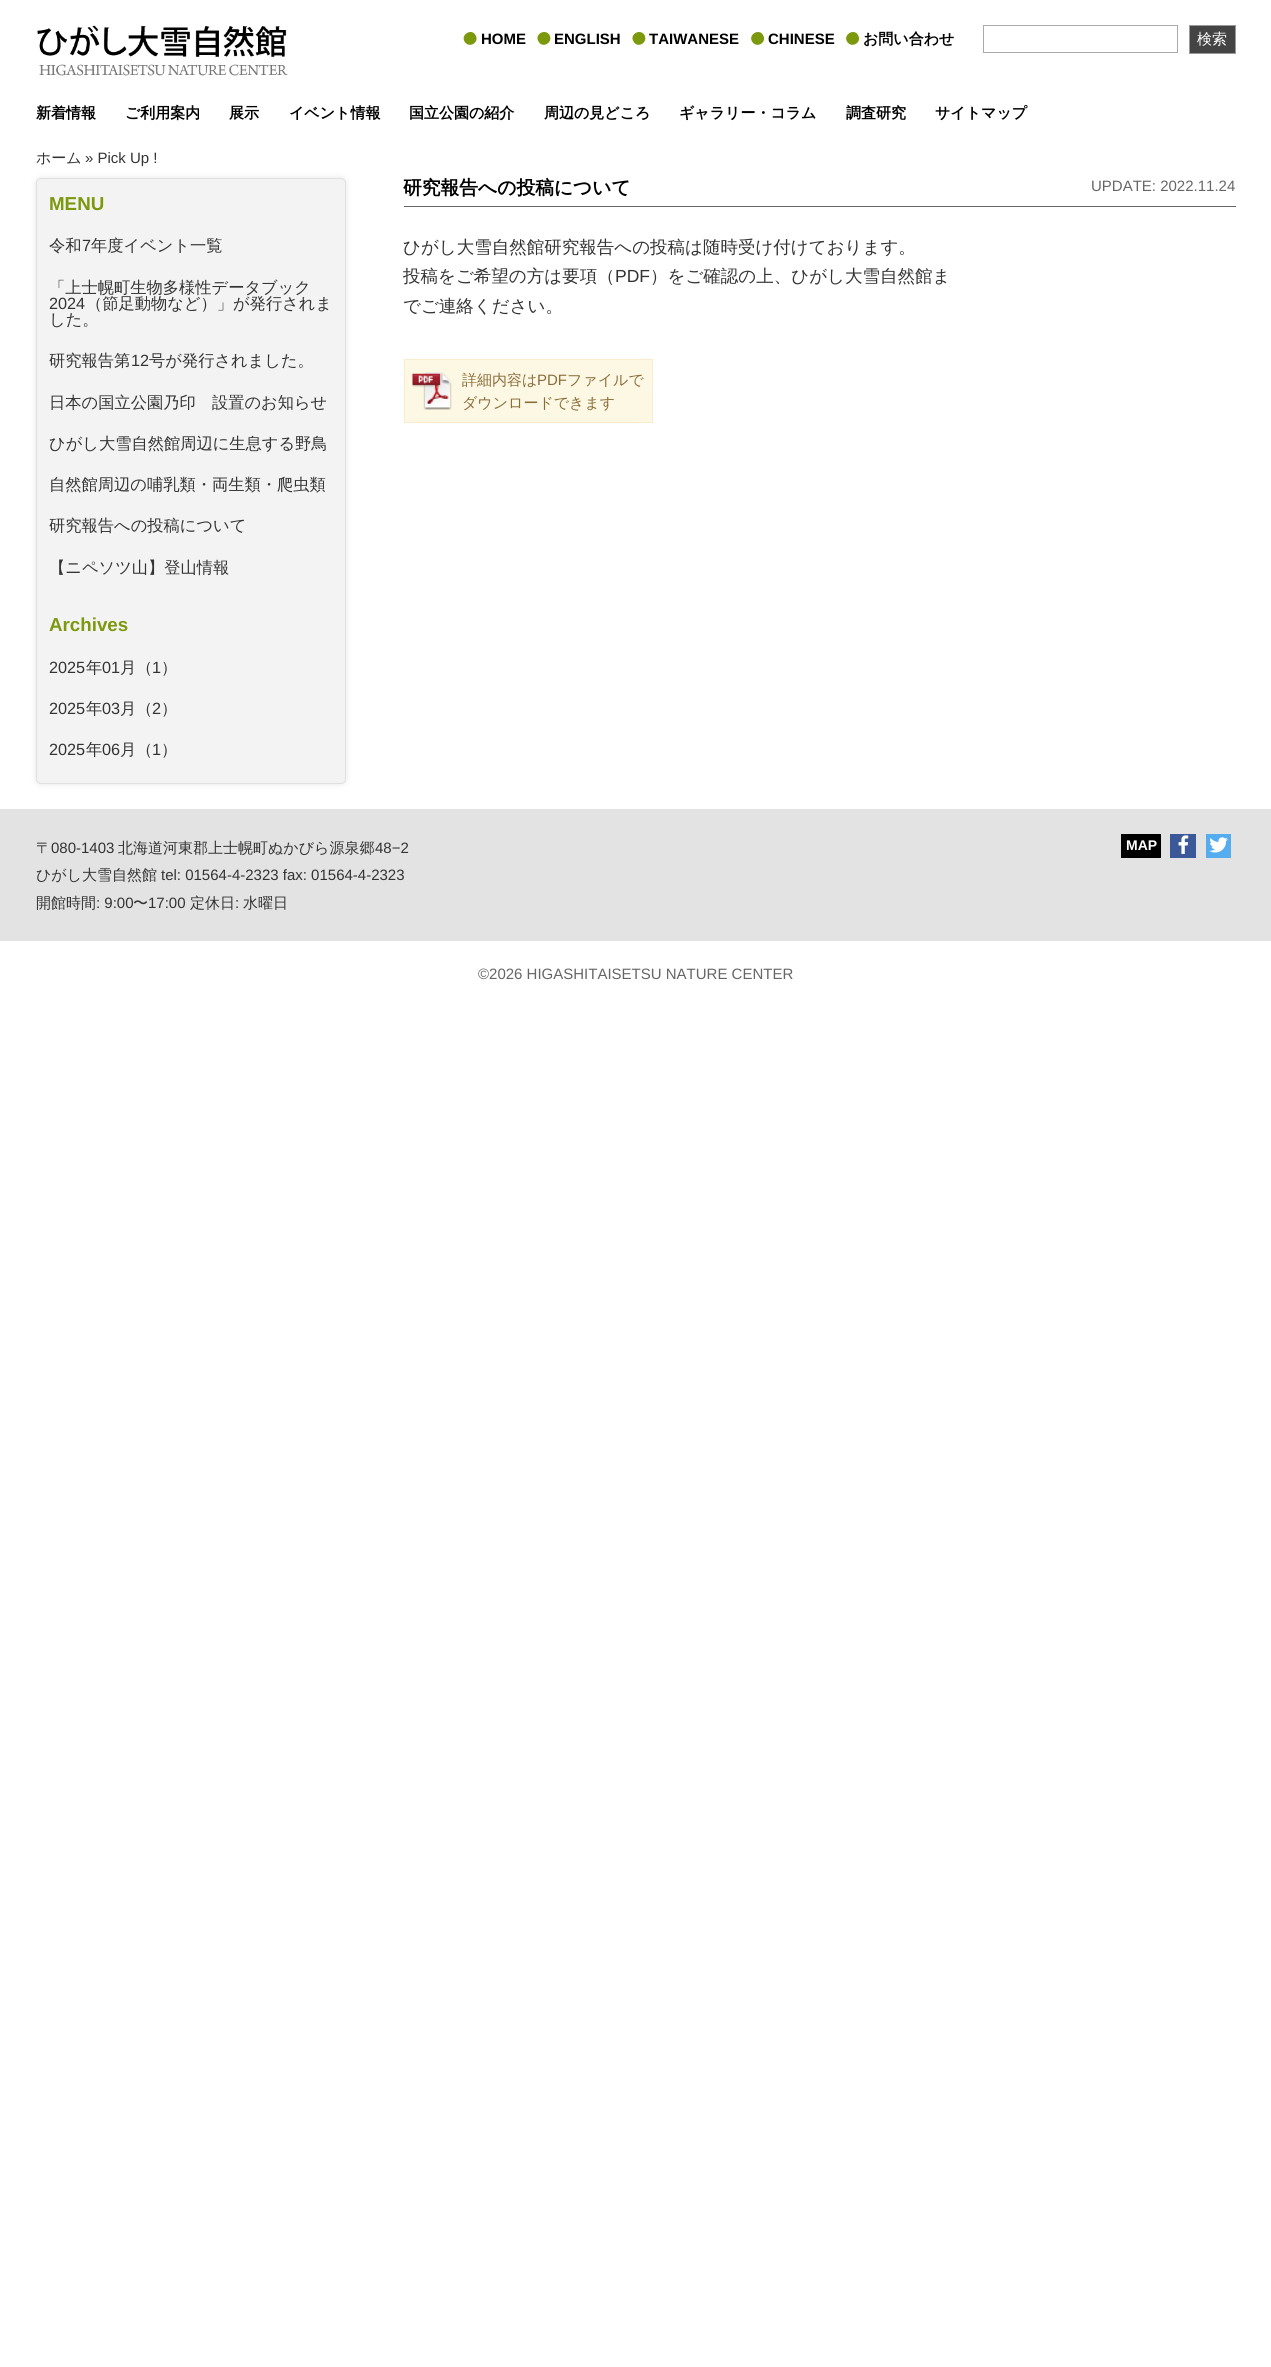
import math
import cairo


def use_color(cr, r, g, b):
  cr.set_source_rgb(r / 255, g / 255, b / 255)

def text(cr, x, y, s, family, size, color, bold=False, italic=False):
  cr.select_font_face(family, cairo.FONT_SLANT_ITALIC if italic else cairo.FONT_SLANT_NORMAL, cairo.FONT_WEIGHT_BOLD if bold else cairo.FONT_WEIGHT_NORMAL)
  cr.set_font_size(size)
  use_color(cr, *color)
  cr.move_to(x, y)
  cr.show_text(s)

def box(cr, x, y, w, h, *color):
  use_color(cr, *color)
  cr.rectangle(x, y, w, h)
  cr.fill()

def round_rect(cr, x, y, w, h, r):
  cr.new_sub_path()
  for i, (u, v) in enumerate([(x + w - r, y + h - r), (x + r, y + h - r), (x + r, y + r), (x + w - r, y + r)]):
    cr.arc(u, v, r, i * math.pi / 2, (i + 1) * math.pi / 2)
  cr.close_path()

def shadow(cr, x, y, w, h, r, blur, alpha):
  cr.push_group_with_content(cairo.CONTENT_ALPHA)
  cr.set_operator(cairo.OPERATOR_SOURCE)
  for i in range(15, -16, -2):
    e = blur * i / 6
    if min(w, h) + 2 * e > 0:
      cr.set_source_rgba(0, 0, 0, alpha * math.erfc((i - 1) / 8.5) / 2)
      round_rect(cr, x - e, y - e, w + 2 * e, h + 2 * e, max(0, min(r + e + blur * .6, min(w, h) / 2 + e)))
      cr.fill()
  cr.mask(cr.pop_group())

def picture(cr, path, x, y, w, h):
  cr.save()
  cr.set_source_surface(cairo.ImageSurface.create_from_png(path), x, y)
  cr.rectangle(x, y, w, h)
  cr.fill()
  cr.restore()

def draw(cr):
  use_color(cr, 255, 255, 255)
  cr.paint()
  picture(cr, "img_01.png", 37, 25, 251, 51)
  use_color(cr, 124, 152, 13)
  cr.new_path()
  cr.move_to(475.5, 35)
  cr.curve_to(480, 42.5, 469, 49, 464.5, 41.5)
  cr.curve_to(460.5, 34.5, 471.5, 28, 475.5, 35)
  cr.close_path()
  cr.fill()
  cr.new_path()
  cr.move_to(549.5, 35)
  cr.curve_to(553.5, 42.5, 542.5, 49, 538.5, 41.5)
  cr.curve_to(534, 34.5, 545, 28, 549.5, 35)
  cr.close_path()
  cr.fill()
  cr.new_path()
  cr.move_to(644.5, 35)
  cr.curve_to(648.5, 42.5, 637.5, 49, 633.5, 41.5)
  cr.curve_to(629, 34.5, 640, 28, 644.5, 35)
  cr.close_path()
  cr.fill()
  cr.new_path()
  cr.move_to(763, 35)
  cr.curve_to(767.5, 42.5, 756.5, 49, 752, 41.5)
  cr.curve_to(748, 34.5, 759, 28, 763, 35)
  cr.close_path()
  cr.fill()
  cr.new_path()
  cr.move_to(858, 35)
  cr.curve_to(862.5, 42.5, 851.5, 49, 847, 41.5)
  cr.curve_to(843, 34.5, 854, 28, 858, 35)
  cr.close_path()
  cr.fill()
  cr.rectangle(983.5, 25.5, 194, 27)
  use_color(cr, 170, 170, 170)
  cr.set_line_width(1)
  cr.stroke()
  use_color(cr, 68, 68, 68)
  cr.rectangle(1189.5, 25.5, 46, 28)
  cr.fill_preserve()
  use_color(cr, 153, 153, 153)
  cr.stroke()
  use_color(cr, 230, 230, 230)
  shadow(cr, 36, 178, 310, 606, 5, 3, 1)
  use_color(cr, 243, 243, 243)
  round_rect(cr, 36.5, 178.5, 309, 605, 4.5)
  cr.fill_preserve()
  use_color(cr, 224, 224, 224)
  cr.stroke()
  box(cr, 404, 206, 832, 1, 102, 102, 102)
  box(cr, 405, 360, 247, 62, 252, 248, 227)
  picture(cr, "img_02.png", 412, 372, 40, 38)
  cr.rectangle(404.5, 359.5, 248, 63)
  use_color(cr, 250, 235, 204)
  cr.stroke()
  box(cr, 0, 809, 1271, 132, 227, 227, 227)
  box(cr, 1121, 834, 40, 24, 0, 0, 0)
  box(cr, 1170, 834, 26, 24, 59, 89, 152)
  picture(cr, "img_03.png", 1178, 835, 11, 19)
  box(cr, 1206, 834, 25, 24, 85, 172, 238)
  picture(cr, "img_04.png", 1209, 837, 19, 16)
  text(cr, 481, 44, "HOME", "Liberation Sans", 15, (0, 0, 0), bold=True)
  text(cr, 554, 44, "ENGLISH", "Liberation Sans", 15, (0, 0, 0), bold=True)
  text(cr, 649, 44, "TAIWANESE", "Liberation Sans", 15, (0, 0, 0), bold=True)
  text(cr, 768, 44, "CHINESE", "Liberation Sans", 15, (0, 0, 0), bold=True)
  text(cr, 863, 44, "お問い合わせ", "WenQuanYi Zen Hei", 15, (0, 0, 0), bold=True)
  text(cr, 1197, 44, "検索", "WenQuanYi Zen Hei Medium", 15, (255, 255, 255))
  text(cr, 36, 118, "新着情報", "WenQuanYi Zen Hei", 15, (0, 0, 0), bold=True)
  text(cr, 125, 118, "ご利用案内", "WenQuanYi Zen Hei", 15, (0, 0, 0), bold=True)
  text(cr, 229, 118, "展示", "WenQuanYi Zen Hei", 15, (0, 0, 0), bold=True)
  text(cr, 289, 118, "イベント情報", "WenQuanYi Zen Hei", 15, (0, 0, 0), bold=True)
  text(cr, 409, 118, "国立公園の紹介", "WenQuanYi Zen Hei", 15, (0, 0, 0), bold=True)
  text(cr, 544, 118, "周辺の見どころ", "WenQuanYi Zen Hei", 15, (0, 0, 0), bold=True)
  text(cr, 679, 118, "ギャラリー・コラム", "WenQuanYi Zen Hei", 15, (0, 0, 0), bold=True)
  text(cr, 846, 118, "調査研究", "WenQuanYi Zen Hei", 15, (0, 0, 0), bold=True)
  text(cr, 935, 118, "サイトマップ", "WenQuanYi Zen Hei", 15, (0, 0, 0), bold=True)
  text(cr, 36, 163, "ホーム", "WenQuanYi Zen Hei Medium", 15, (51, 51, 51))
  text(cr, 85, 163, "» Pick Up !", "Liberation Sans", 15, (51, 51, 51))
  text(cr, 49, 210, "MENU", "Liberation Sans", 18.75, (124, 152, 13), bold=True)
  text(cr, 49, 251, "令和", "WenQuanYi Zen Hei Medium", 16.25, (51, 51, 51))
  text(cr, 82, 251, "7", "Liberation Sans", 16.25, (51, 51, 51))
  text(cr, 91, 251, "年度イベント一覧", "WenQuanYi Zen Hei Medium", 16.25, (51, 51, 51))
  text(cr, 49, 293, "「上士幌町生物多様性データブック", "WenQuanYi Zen Hei Medium", 16.25, (51, 51, 51))
  text(cr, 49, 309, "2024", "Liberation Sans", 16.25, (51, 51, 51))
  text(cr, 86, 309, "（節足動物など）」が発行されま", "WenQuanYi Zen Hei Medium", 16.25, (51, 51, 51))
  text(cr, 49, 325, "した。", "WenQuanYi Zen Hei Medium", 16.25, (51, 51, 51))
  text(cr, 49, 366, "研究報告第", "WenQuanYi Zen Hei Medium", 16.25, (51, 51, 51))
  text(cr, 131, 366, "12", "Liberation Sans", 16.25, (51, 51, 51))
  text(cr, 149, 366, "号が発行されました。", "WenQuanYi Zen Hei Medium", 16.25, (51, 51, 51))
  text(cr, 49, 408, "日本の国立公園乃印　設置のお知らせ", "WenQuanYi Zen Hei Medium", 16.25, (51, 51, 51))
  text(cr, 49, 449, "ひがし大雪自然館周辺に生息する野鳥", "WenQuanYi Zen Hei Medium", 16.25, (51, 51, 51))
  text(cr, 49, 490, "自然館周辺の哺乳類・両生類・爬虫類", "WenQuanYi Zen Hei Medium", 16.25, (51, 51, 51))
  text(cr, 49, 531, "研究報告への投稿について", "WenQuanYi Zen Hei Medium", 16.25, (51, 51, 51))
  text(cr, 49, 573, "【ニペソツ山】登山情報", "WenQuanYi Zen Hei Medium", 16.25, (51, 51, 51))
  text(cr, 49, 631, "Archives", "Liberation Sans", 18.75, (124, 152, 13), bold=True)
  text(cr, 49, 673, "2025", "Liberation Sans", 16.25, (51, 51, 51))
  text(cr, 86, 673, "年", "WenQuanYi Zen Hei Medium", 16.25, (51, 51, 51))
  text(cr, 102, 673, "01", "Liberation Sans", 16.25, (51, 51, 51))
  text(cr, 120, 673, "月（", "WenQuanYi Zen Hei Medium", 16.25, (51, 51, 51))
  text(cr, 152, 673, "1", "Liberation Sans", 16.25, (51, 51, 51))
  text(cr, 161, 673, "）", "WenQuanYi Zen Hei Medium", 16.25, (51, 51, 51))
  text(cr, 49, 714, "2025", "Liberation Sans", 16.25, (51, 51, 51))
  text(cr, 86, 714, "年", "WenQuanYi Zen Hei Medium", 16.25, (51, 51, 51))
  text(cr, 102, 714, "03", "Liberation Sans", 16.25, (51, 51, 51))
  text(cr, 120, 714, "月（", "WenQuanYi Zen Hei Medium", 16.25, (51, 51, 51))
  text(cr, 152, 714, "2", "Liberation Sans", 16.25, (51, 51, 51))
  text(cr, 161, 714, "）", "WenQuanYi Zen Hei Medium", 16.25, (51, 51, 51))
  text(cr, 49, 755, "2025", "Liberation Sans", 16.25, (51, 51, 51))
  text(cr, 86, 755, "年", "WenQuanYi Zen Hei Medium", 16.25, (51, 51, 51))
  text(cr, 102, 755, "06", "Liberation Sans", 16.25, (51, 51, 51))
  text(cr, 120, 755, "月（", "WenQuanYi Zen Hei Medium", 16.25, (51, 51, 51))
  text(cr, 152, 755, "1", "Liberation Sans", 16.25, (51, 51, 51))
  text(cr, 161, 755, "）", "WenQuanYi Zen Hei Medium", 16.25, (51, 51, 51))
  text(cr, 403, 194, "研究報告への投稿について", "WenQuanYi Zen Hei", 18.75, (0, 0, 0), bold=True)
  text(cr, 1091, 191, "UPDATE: 2022.11.24", "Liberation Sans", 15, (102, 102, 102))
  text(cr, 403, 253, "ひがし大雪自然館研究報告への投稿は随時受け付けております。", "WenQuanYi Zen Hei Medium", 17.5, (51, 51, 51))
  text(cr, 403, 282, "投稿をご希望の方は要項（", "WenQuanYi Zen Hei Medium", 17.5, (51, 51, 51))
  text(cr, 615, 282, "PDF", "Liberation Sans", 17.5, (51, 51, 51))
  text(cr, 650, 282, "）をご確認の上、ひがし大雪自然館ま", "WenQuanYi Zen Hei Medium", 17.5, (51, 51, 51))
  text(cr, 403, 312, "でご連絡ください。", "WenQuanYi Zen Hei Medium", 17.5, (51, 51, 51))
  text(cr, 462, 385, "詳細内容は", "WenQuanYi Zen Hei Medium", 15, (138, 109, 59))
  text(cr, 537, 385, "PDF", "Liberation Sans", 15, (138, 109, 59))
  text(cr, 567, 385, "ファイルで", "WenQuanYi Zen Hei Medium", 15, (138, 109, 59))
  text(cr, 462, 408, "ダウンロードできます", "WenQuanYi Zen Hei Medium", 15, (138, 109, 59))
  text(cr, 36, 853, "〒", "WenQuanYi Zen Hei Medium", 15, (51, 51, 51))
  text(cr, 51, 853, "080-1403", "Liberation Sans", 15, (51, 51, 51))
  text(cr, 118, 853, "北海道河東郡上士幌町ぬかびら源泉郷", "WenQuanYi Zen Hei Medium", 15, (51, 51, 51))
  text(cr, 375, 853, "48−2", "Liberation Sans", 15, (51, 51, 51))
  text(cr, 36, 880, "ひがし大雪自然館", "WenQuanYi Zen Hei Medium", 15, (51, 51, 51))
  text(cr, 161, 880, "tel: 01564-4-2323 fax: 01564-4-2323", "Liberation Sans", 15, (51, 51, 51))
  text(cr, 36, 908, "開館時間", "WenQuanYi Zen Hei Medium", 15, (51, 51, 51))
  text(cr, 96, 908, ": 9:00", "Liberation Sans", 15, (51, 51, 51))
  text(cr, 133, 908, "〜", "WenQuanYi Zen Hei Medium", 15, (51, 51, 51))
  text(cr, 148, 908, "17:00", "Liberation Sans", 15, (51, 51, 51))
  text(cr, 190, 908, "定休日", "WenQuanYi Zen Hei Medium", 15, (51, 51, 51))
  text(cr, 235, 908, ":", "Liberation Sans", 15, (51, 51, 51))
  text(cr, 243, 908, "水曜日", "WenQuanYi Zen Hei Medium", 15, (51, 51, 51))
  text(cr, 1126, 850, "MAP", "Liberation Sans", 14, (255, 255, 255), bold=True)
  text(cr, 478, 979, "©2026 HIGASHITAISETSU NATURE CENTER", "Liberation Sans", 15, (102, 102, 102))


surface = cairo.ImageSurface(cairo.FORMAT_RGB24, 1271, 2367)
cr = cairo.Context(surface)
options = cairo.FontOptions()
options.set_hint_metrics(cairo.HINT_METRICS_OFF)
options.set_hint_style(cairo.HINT_STYLE_NONE)
cr.set_font_options(options)
cr.set_miter_limit(4)
draw(cr)
surface.write_to_png("out.png")
